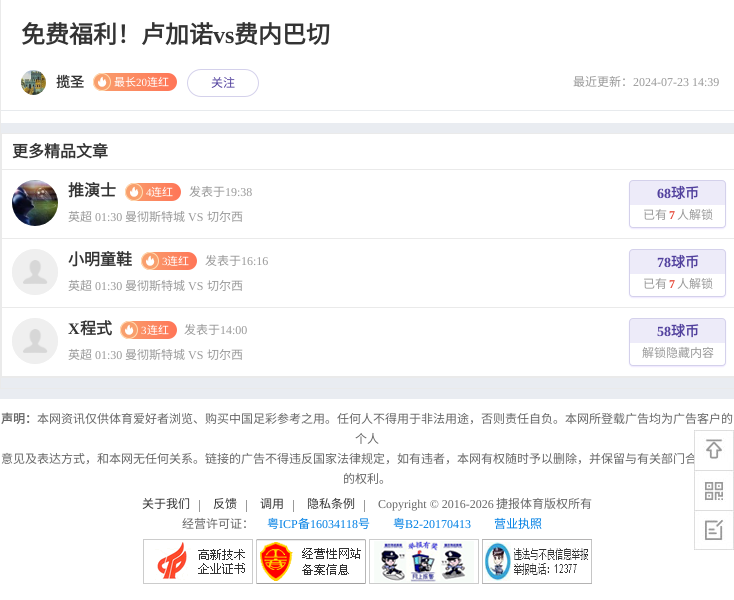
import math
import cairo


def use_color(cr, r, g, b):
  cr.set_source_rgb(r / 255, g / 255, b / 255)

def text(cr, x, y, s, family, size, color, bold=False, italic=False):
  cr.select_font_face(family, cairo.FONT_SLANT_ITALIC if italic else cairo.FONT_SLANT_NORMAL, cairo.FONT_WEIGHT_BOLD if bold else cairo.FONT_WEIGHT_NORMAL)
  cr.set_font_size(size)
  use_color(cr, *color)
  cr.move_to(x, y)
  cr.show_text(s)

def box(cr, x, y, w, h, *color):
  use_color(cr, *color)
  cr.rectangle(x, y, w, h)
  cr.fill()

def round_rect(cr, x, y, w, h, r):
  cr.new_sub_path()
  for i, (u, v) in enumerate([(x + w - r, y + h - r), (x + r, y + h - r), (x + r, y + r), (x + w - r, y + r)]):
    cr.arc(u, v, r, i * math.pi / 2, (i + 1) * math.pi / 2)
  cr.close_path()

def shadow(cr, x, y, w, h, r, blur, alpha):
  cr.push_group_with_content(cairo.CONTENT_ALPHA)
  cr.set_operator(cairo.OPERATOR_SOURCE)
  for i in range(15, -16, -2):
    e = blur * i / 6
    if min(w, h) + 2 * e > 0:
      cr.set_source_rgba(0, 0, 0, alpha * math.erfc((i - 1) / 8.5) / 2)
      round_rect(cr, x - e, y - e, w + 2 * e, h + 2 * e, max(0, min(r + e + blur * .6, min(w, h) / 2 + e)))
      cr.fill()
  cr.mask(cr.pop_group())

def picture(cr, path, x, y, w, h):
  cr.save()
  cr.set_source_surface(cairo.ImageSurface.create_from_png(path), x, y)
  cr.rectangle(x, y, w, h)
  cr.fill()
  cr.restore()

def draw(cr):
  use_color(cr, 233, 236, 241)
  cr.paint()
  cr.rectangle(0.5, -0.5, 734, 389)
  use_color(cr, 234, 234, 234)
  cr.set_line_width(1)
  cr.stroke()
  box(cr, 1, 111, 733, 12, 255, 255, 255)
  box(cr, 1, 0, 733, 110, 255, 255, 255)
  box(cr, 1, 110, 733, 1, 231, 234, 237)
  picture(cr, "img_01.png", 21, 70, 25, 25)
  gradient = cairo.LinearGradient(94, 82, 177, 82)
  gradient.add_color_stop_rgba(0, 0.976, 0.624, 0.427, 1)
  gradient.add_color_stop_rgba(1, 1, 0.459, 0.341, 1)
  cr.set_source(gradient)
  round_rect(cr, 94, 73, 83, 18, 9)
  cr.fill()
  use_color(cr, 249, 159, 109)
  cr.arc(102, 82, 9, 0, 2 * math.pi)
  cr.fill()
  picture(cr, "img_02.png", 98, 76, 9, 11)
  cr.arc(102, 82, 8.5, 0, 2 * math.pi)
  use_color(cr, 255, 221, 180)
  cr.stroke()
  round_rect(cr, 187.5, 69.5, 71, 27, 13.5)
  use_color(cr, 212, 209, 235)
  cr.stroke()
  box(cr, 2, 134, 732, 242, 255, 255, 255)
  cr.rectangle(1.5, 133.5, 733, 244)
  use_color(cr, 234, 234, 234)
  cr.stroke()
  box(cr, 2, 169, 732, 1, 234, 234, 234)
  box(cr, 2, 238, 732, 1, 234, 234, 234)
  use_color(cr, 243, 243, 243)
  cr.arc(35, 203, 23, 0, 2 * math.pi)
  cr.fill()
  picture(cr, "img_03.png", 12, 180, 46, 46)
  gradient = cairo.LinearGradient(126, 192, 181, 192)
  gradient.add_color_stop_rgba(0, 0.976, 0.624, 0.427, 1)
  gradient.add_color_stop_rgba(1, 1, 0.459, 0.341, 1)
  cr.set_source(gradient)
  round_rect(cr, 126, 183, 55, 18, 9)
  cr.fill()
  use_color(cr, 249, 159, 109)
  cr.arc(134, 192, 9, 0, 2 * math.pi)
  cr.fill()
  picture(cr, "img_02.png", 130, 186, 9, 11)
  cr.arc(134, 192, 8.5, 0, 2 * math.pi)
  use_color(cr, 255, 221, 180)
  cr.stroke()
  use_color(cr, 90, 22, 255)
  shadow(cr, 629, 181, 97, 48, 4, 0.5, 0.1)
  use_color(cr, 237, 235, 249)
  round_rect(cr, 629.5, 180.5, 96, 47, 3.5)
  cr.fill_preserve()
  use_color(cr, 212, 209, 235)
  cr.stroke()
  use_color(cr, 255, 255, 255)
  cr.new_path()
  cr.move_to(630, 205)
  cr.line_to(725, 205)
  cr.line_to(725, 224)
  cr.curve_to(725, 225.5, 723.5, 227, 722, 227)
  cr.line_to(633, 227)
  cr.curve_to(631.5, 227, 630, 225.5, 630, 224)
  cr.close_path()
  cr.fill()
  box(cr, 2, 307, 732, 1, 234, 234, 234)
  use_color(cr, 243, 243, 243)
  cr.arc(35, 272, 23, 0, 2 * math.pi)
  cr.fill()
  picture(cr, "img_04.png", 12, 249, 46, 46)
  gradient = cairo.LinearGradient(142, 261, 197, 261)
  gradient.add_color_stop_rgba(0, 0.976, 0.624, 0.427, 1)
  gradient.add_color_stop_rgba(1, 1, 0.459, 0.341, 1)
  cr.set_source(gradient)
  round_rect(cr, 142, 252, 55, 18, 9)
  cr.fill()
  use_color(cr, 249, 159, 109)
  cr.arc(150, 261, 9, 0, 2 * math.pi)
  cr.fill()
  picture(cr, "img_02.png", 146, 255, 9, 11)
  cr.arc(150, 261, 8.5, 0, 2 * math.pi)
  use_color(cr, 255, 221, 180)
  cr.stroke()
  use_color(cr, 90, 22, 255)
  shadow(cr, 629, 250, 97, 48, 4, 0.5, 0.1)
  use_color(cr, 237, 235, 249)
  round_rect(cr, 629.5, 249.5, 96, 47, 3.5)
  cr.fill_preserve()
  use_color(cr, 212, 209, 235)
  cr.stroke()
  use_color(cr, 255, 255, 255)
  cr.new_path()
  cr.move_to(630, 274)
  cr.line_to(725, 274)
  cr.line_to(725, 293)
  cr.curve_to(725, 294.5, 723.5, 296, 722, 296)
  cr.line_to(633, 296)
  cr.curve_to(631.5, 296, 630, 294.5, 630, 293)
  cr.close_path()
  cr.fill()
  box(cr, 2, 376, 732, 1, 234, 234, 234)
  use_color(cr, 243, 243, 243)
  cr.arc(35, 341, 23, 0, 2 * math.pi)
  cr.fill()
  picture(cr, "img_05.png", 12, 318, 46, 46)
  gradient = cairo.LinearGradient(121, 330, 177, 330)
  gradient.add_color_stop_rgba(0, 0.976, 0.624, 0.427, 1)
  gradient.add_color_stop_rgba(1, 1, 0.459, 0.341, 1)
  cr.set_source(gradient)
  round_rect(cr, 121, 321, 56, 18, 9)
  cr.fill()
  use_color(cr, 249, 159, 109)
  cr.arc(129, 330, 9, 0, 2 * math.pi)
  cr.fill()
  picture(cr, "img_02.png", 125, 324, 9, 11)
  cr.arc(129, 330, 8.5, 0, 2 * math.pi)
  use_color(cr, 255, 221, 180)
  cr.stroke()
  use_color(cr, 90, 22, 255)
  shadow(cr, 629, 319, 97, 48, 4, 0.5, 0.1)
  use_color(cr, 237, 235, 249)
  round_rect(cr, 629.5, 318.5, 96, 47, 3.5)
  cr.fill_preserve()
  use_color(cr, 212, 209, 235)
  cr.stroke()
  use_color(cr, 255, 255, 255)
  cr.new_path()
  cr.move_to(630, 343)
  cr.line_to(725, 343)
  cr.line_to(725, 362)
  cr.curve_to(725, 363.5, 723.5, 365, 722, 365)
  cr.line_to(633, 365)
  cr.curve_to(631.5, 365, 630, 363.5, 630, 362)
  cr.close_path()
  cr.fill()
  box(cr, 0, 399, 734, 201, 255, 255, 255)
  box(cr, 199, 500, 1, 12, 153, 153, 153)
  box(cr, 246, 500, 1, 12, 153, 153, 153)
  box(cr, 293, 500, 1, 12, 153, 153, 153)
  box(cr, 364, 500, 1, 12, 153, 153, 153)
  picture(cr, "img_06.png", 143, 539, 110, 45)
  picture(cr, "img_07.png", 256, 539, 110, 45)
  picture(cr, "img_08.png", 369, 539, 110, 45)
  picture(cr, "img_09.png", 482, 539, 110, 45)
  picture(cr, "img_11.png", 694, 470, 40, 40)
  picture(cr, "img_12.png", 694, 510, 40, 40)
  text(cr, 21, 43, "免费福利！卢加诺", "Noto Sans CJK SC", 24, (51, 51, 51), bold=True)
  text(cr, 213, 43, "vs", "Liberation Serif", 24, (51, 51, 51), bold=True)
  text(cr, 234, 43, "费内巴切", "Noto Sans CJK SC", 24, (51, 51, 51), bold=True)
  text(cr, 56, 87, "揽圣", "Noto Sans CJK SC", 14, (51, 51, 51), bold=True)
  text(cr, 114, 86, "最长", "Noto Sans CJK SC", 11, (255, 255, 255))
  text(cr, 136, 86, "20", "Liberation Serif", 11, (255, 255, 255))
  text(cr, 147, 86, "连红", "Noto Sans CJK SC", 11, (255, 255, 255))
  text(cr, 211, 87, "关注", "Noto Sans CJK SC", 12, (81, 64, 157))
  text(cr, 573, 86, "最近更新：", "Noto Sans CJK SC", 12, (153, 153, 153))
  text(cr, 633, 86, "2024-07-23 14:39", "Liberation Serif", 12, (153, 153, 153))
  text(cr, 12, 157, "更多精品文章", "Noto Sans CJK SC", 16, (51, 51, 51), bold=True)
  text(cr, 68, 196, "推演士", "Noto Sans CJK SC", 16, (51, 51, 51), bold=True)
  text(cr, 146, 196, "4", "Liberation Serif", 11, (255, 255, 255))
  text(cr, 151, 196, "连红", "Noto Sans CJK SC", 11, (255, 255, 255))
  text(cr, 189, 196, "发表于", "Noto Sans CJK SC", 12, (153, 153, 153))
  text(cr, 225, 196, "19:38", "Liberation Serif", 12, (153, 153, 153))
  text(cr, 68, 221, "英超", "Noto Sans CJK SC", 12, (153, 153, 153))
  text(cr, 95, 221, "01:30", "Liberation Serif", 12, (153, 153, 153))
  text(cr, 125, 221, "曼彻斯特城", "Noto Sans CJK SC", 12, (153, 153, 153))
  text(cr, 188, 221, "VS", "Liberation Serif", 12, (153, 153, 153))
  text(cr, 207, 221, "切尔西", "Noto Sans CJK SC", 12, (153, 153, 153))
  text(cr, 657, 198, "68", "Liberation Serif", 14, (81, 64, 157), bold=True)
  text(cr, 671, 198, "球币", "Noto Sans CJK SC", 14, (81, 64, 157), bold=True)
  text(cr, 643, 219, "已有", "Noto Sans CJK SC", 12, (153, 153, 153))
  text(cr, 669, 219, "7", "Liberation Serif", 12, (229, 73, 57), bold=True)
  text(cr, 677, 219, "人解锁", "Noto Sans CJK SC", 12, (153, 153, 153))
  text(cr, 68, 265, "小明童鞋", "Noto Sans CJK SC", 16, (51, 51, 51), bold=True)
  text(cr, 162, 265, "3", "Liberation Serif", 11, (255, 255, 255))
  text(cr, 167, 265, "连红", "Noto Sans CJK SC", 11, (255, 255, 255))
  text(cr, 205, 265, "发表于", "Noto Sans CJK SC", 12, (153, 153, 153))
  text(cr, 241, 265, "16:16", "Liberation Serif", 12, (153, 153, 153))
  text(cr, 68, 290, "英超", "Noto Sans CJK SC", 12, (153, 153, 153))
  text(cr, 95, 290, "01:30", "Liberation Serif", 12, (153, 153, 153))
  text(cr, 125, 290, "曼彻斯特城", "Noto Sans CJK SC", 12, (153, 153, 153))
  text(cr, 188, 290, "VS", "Liberation Serif", 12, (153, 153, 153))
  text(cr, 207, 290, "切尔西", "Noto Sans CJK SC", 12, (153, 153, 153))
  text(cr, 657, 267, "78", "Liberation Serif", 14, (81, 64, 157), bold=True)
  text(cr, 671, 267, "球币", "Noto Sans CJK SC", 14, (81, 64, 157), bold=True)
  text(cr, 643, 288, "已有", "Noto Sans CJK SC", 12, (153, 153, 153))
  text(cr, 669, 288, "7", "Liberation Serif", 12, (229, 73, 57), bold=True)
  text(cr, 677, 288, "人解锁", "Noto Sans CJK SC", 12, (153, 153, 153))
  text(cr, 68, 334, "X", "Liberation Serif", 16, (51, 51, 51), bold=True)
  text(cr, 80, 334, "程式", "Noto Sans CJK SC", 16, (51, 51, 51), bold=True)
  text(cr, 141, 334, "3", "Liberation Serif", 11, (255, 255, 255))
  text(cr, 147, 334, "连红", "Noto Sans CJK SC", 11, (255, 255, 255))
  text(cr, 184, 334, "发表于", "Noto Sans CJK SC", 12, (153, 153, 153))
  text(cr, 220, 334, "14:00", "Liberation Serif", 12, (153, 153, 153))
  text(cr, 68, 359, "英超", "Noto Sans CJK SC", 12, (153, 153, 153))
  text(cr, 95, 359, "01:30", "Liberation Serif", 12, (153, 153, 153))
  text(cr, 125, 359, "曼彻斯特城", "Noto Sans CJK SC", 12, (153, 153, 153))
  text(cr, 188, 359, "VS", "Liberation Serif", 12, (153, 153, 153))
  text(cr, 207, 359, "切尔西", "Noto Sans CJK SC", 12, (153, 153, 153))
  text(cr, 657, 336, "58", "Liberation Serif", 14, (81, 64, 157), bold=True)
  text(cr, 671, 336, "球币", "Noto Sans CJK SC", 14, (81, 64, 157), bold=True)
  text(cr, 642, 357, "解锁隐藏内容", "Noto Sans CJK SC", 12, (153, 153, 153))
  text(cr, 1, 423, "声明：", "Noto Sans CJK SC", 12, (102, 102, 102), bold=True)
  text(cr, 37, 423, "本网资讯仅供体育爱好者浏览、购买中国足彩参考之用。任何人不得用于非法用途，否则责任自负。本网所登载广告均为广告客户的", "Noto Sans CJK SC", 12, (102, 102, 102))
  text(cr, 355, 443, "个人", "Noto Sans CJK SC", 12, (102, 102, 102))
  text(cr, 1, 463, "意见及表达方式，和本网无任何关系。链接的广告不得违反国家法律规定，如有违者，本网有权随时予以删除，并保留与有关部门合", "Noto Sans CJK SC", 12, (102, 102, 102))
  text(cr, 343, 483, "的权利。", "Noto Sans CJK SC", 12, (102, 102, 102))
  text(cr, 142, 508, "关于我们", "Noto Sans CJK SC", 12, (51, 51, 51))
  text(cr, 213, 508, "反馈", "Noto Sans CJK SC", 12, (51, 51, 51))
  text(cr, 260, 508, "调用", "Noto Sans CJK SC", 12, (51, 51, 51))
  text(cr, 307, 508, "隐私条例", "Noto Sans CJK SC", 12, (51, 51, 51))
  text(cr, 378, 508, "Copyright © 2016-2026", "Liberation Serif", 12, (102, 102, 102))
  text(cr, 496, 508, "捷报体育版权所有", "Noto Sans CJK SC", 12, (102, 102, 102))
  text(cr, 182, 528, "经营许可证：", "Noto Sans CJK SC", 12, (102, 102, 102))
  text(cr, 267, 528, "粤", "Noto Sans CJK SC", 12, (0, 127, 228))
  text(cr, 279, 528, "ICP", "Liberation Serif", 12, (0, 127, 228))
  text(cr, 298, 528, "备", "Noto Sans CJK SC", 12, (0, 127, 228))
  text(cr, 310, 528, "16034118", "Liberation Serif", 12, (0, 127, 228))
  text(cr, 358, 528, "号", "Noto Sans CJK SC", 12, (0, 127, 228))
  text(cr, 393, 528, "粤", "Noto Sans CJK SC", 12, (0, 127, 228))
  text(cr, 405, 528, "B2-20170413", "Liberation Serif", 12, (0, 127, 228))
  text(cr, 494, 528, "营业执照", "Noto Sans CJK SC", 12, (0, 127, 228))
  picture(cr, "img_10.png", 694, 430, 40, 40)


surface = cairo.ImageSurface(cairo.FORMAT_RGB24, 734, 600)
cr = cairo.Context(surface)
options = cairo.FontOptions()
options.set_hint_metrics(cairo.HINT_METRICS_OFF)
options.set_hint_style(cairo.HINT_STYLE_NONE)
cr.set_font_options(options)
cr.set_miter_limit(4)
draw(cr)
surface.write_to_png("out.png")
